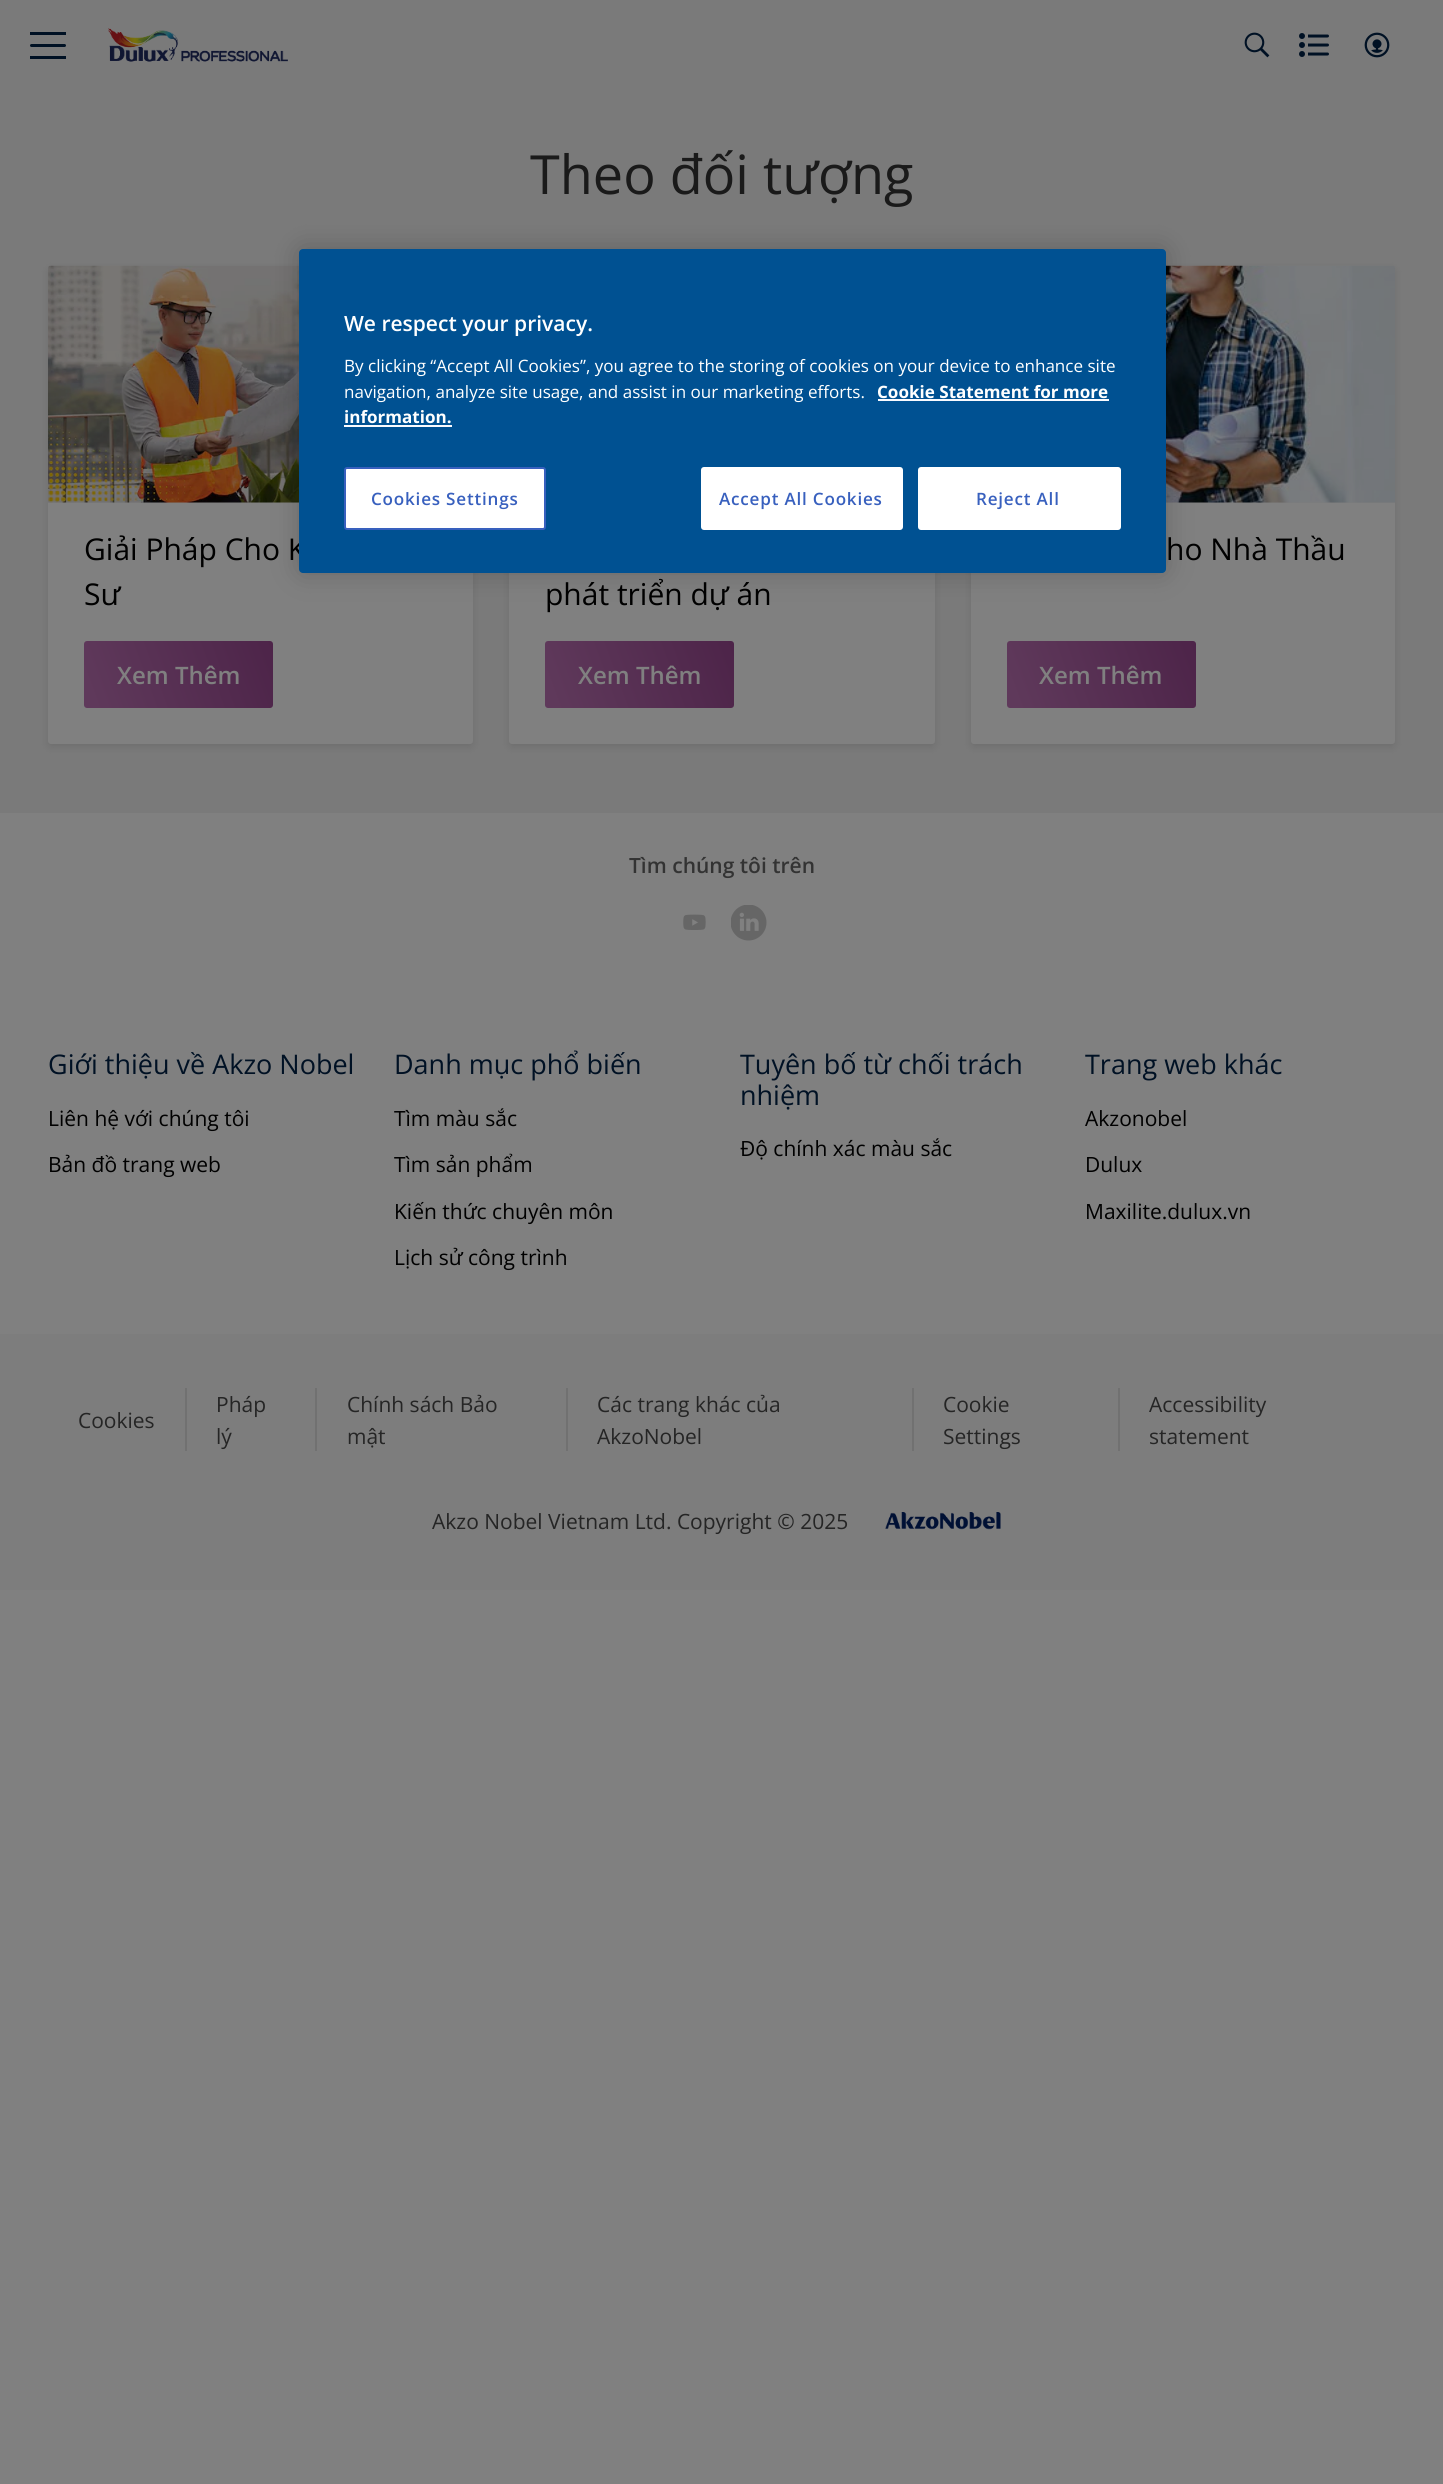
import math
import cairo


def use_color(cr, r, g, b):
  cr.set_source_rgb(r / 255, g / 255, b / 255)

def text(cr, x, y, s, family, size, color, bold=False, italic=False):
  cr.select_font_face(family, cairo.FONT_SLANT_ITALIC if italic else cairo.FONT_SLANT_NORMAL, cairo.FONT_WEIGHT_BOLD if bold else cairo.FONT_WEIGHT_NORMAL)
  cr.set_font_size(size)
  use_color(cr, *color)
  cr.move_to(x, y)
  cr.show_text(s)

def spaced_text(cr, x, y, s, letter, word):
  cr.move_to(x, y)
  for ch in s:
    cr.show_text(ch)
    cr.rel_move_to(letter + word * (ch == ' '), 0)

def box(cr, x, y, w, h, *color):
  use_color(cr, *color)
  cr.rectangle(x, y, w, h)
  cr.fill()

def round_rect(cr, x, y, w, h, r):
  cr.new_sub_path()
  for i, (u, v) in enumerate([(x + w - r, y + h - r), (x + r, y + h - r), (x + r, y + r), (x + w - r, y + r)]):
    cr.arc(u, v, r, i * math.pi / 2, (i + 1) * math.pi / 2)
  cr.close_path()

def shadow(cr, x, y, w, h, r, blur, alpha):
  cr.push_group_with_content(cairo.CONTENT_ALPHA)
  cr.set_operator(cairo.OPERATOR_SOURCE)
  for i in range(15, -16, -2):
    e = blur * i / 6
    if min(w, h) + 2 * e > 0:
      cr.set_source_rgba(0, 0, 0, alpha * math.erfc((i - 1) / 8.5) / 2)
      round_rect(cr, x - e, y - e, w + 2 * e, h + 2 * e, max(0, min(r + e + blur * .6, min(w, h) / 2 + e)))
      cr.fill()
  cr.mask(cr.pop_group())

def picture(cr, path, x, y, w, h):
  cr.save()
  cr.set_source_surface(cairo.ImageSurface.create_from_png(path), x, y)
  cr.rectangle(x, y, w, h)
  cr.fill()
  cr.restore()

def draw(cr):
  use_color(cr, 128, 128, 128)
  cr.paint()
  box(cr, 0, 0, 1443, 813, 122, 122, 122)
  use_color(cr, 0, 17, 36)
  round_rect(cr, 30, 44, 36, 3, 1.5)
  cr.fill()
  box(cr, 30, 32, 36, 3, 0, 17, 36)
  box(cr, 30, 56, 36, 3, 0, 17, 36)
  picture(cr, "img_01.png", 108, 28, 180, 34)
  picture(cr, "img_02.png", 1244, 32, 26, 26)
  picture(cr, "img_03.png", 1299, 33, 30, 24)
  picture(cr, "img_04.png", 1364, 32, 26, 26)
  use_color(cr, 0, 0, 0)
  shadow(cr, 48, 269, 425, 478, 3, 4.5, 0.1)
  use_color(cr, 128, 128, 128)
  round_rect(cr, 48, 266, 425, 478, 3)
  cr.fill()
  use_color(cr, 125, 125, 125)
  cr.new_path()
  cr.move_to(51, 266)
  cr.line_to(470, 266)
  cr.curve_to(471.5, 266, 473, 267.5, 473, 269)
  cr.line_to(473, 503)
  cr.line_to(48, 503)
  cr.line_to(48, 269)
  cr.curve_to(48, 267.5, 49.5, 266, 51, 266)
  cr.close_path()
  cr.fill()
  picture(cr, "img_05.png", 48, 265, 251, 238)
  gradient = cairo.LinearGradient(84, 709, 273, 640)
  gradient.add_color_stop_rgba(0.05, 0.373, 0.224, 0.357, 1)
  gradient.add_color_stop_rgba(1, 0.302, 0.141, 0.286, 1)
  cr.set_source(gradient)
  round_rect(cr, 84, 641, 189, 67, 3)
  cr.fill()
  use_color(cr, 0, 0, 0)
  shadow(cr, 509, 269, 426, 478, 3, 4.5, 0.1)
  use_color(cr, 128, 128, 128)
  round_rect(cr, 509, 266, 426, 478, 3)
  cr.fill()
  gradient = cairo.LinearGradient(545, 709, 733, 640)
  gradient.add_color_stop_rgba(0.05, 0.373, 0.224, 0.357, 1)
  gradient.add_color_stop_rgba(1, 0.302, 0.141, 0.286, 1)
  cr.set_source(gradient)
  round_rect(cr, 545, 641, 189, 67, 3)
  cr.fill()
  use_color(cr, 0, 0, 0)
  shadow(cr, 971, 269, 424, 478, 3, 4.5, 0.1)
  use_color(cr, 128, 128, 128)
  round_rect(cr, 971, 266, 424, 478, 3)
  cr.fill()
  use_color(cr, 125, 125, 125)
  cr.new_path()
  cr.move_to(974, 266)
  cr.line_to(1392, 266)
  cr.curve_to(1393.5, 266, 1395, 267.5, 1395, 269)
  cr.line_to(1395, 503)
  cr.line_to(971, 503)
  cr.line_to(971, 269)
  cr.curve_to(971, 267.5, 972.5, 266, 974, 266)
  cr.close_path()
  cr.fill()
  picture(cr, "img_06.png", 1166, 265, 229, 238)
  gradient = cairo.LinearGradient(1007, 709, 1195, 640)
  gradient.add_color_stop_rgba(0.05, 0.373, 0.224, 0.357, 1)
  gradient.add_color_stop_rgba(1, 0.302, 0.141, 0.286, 1)
  cr.set_source(gradient)
  round_rect(cr, 1007, 641, 189, 67, 3)
  cr.fill()
  picture(cr, "img_07.png", 683, 914, 23, 16)
  picture(cr, "img_08.png", 731, 905, 36, 36)
  box(cr, 0, 1334, 1443, 256, 125, 125, 125)
  box(cr, 185, 1388, 2, 63, 113, 113, 113)
  box(cr, 315, 1388, 2, 63, 113, 113, 113)
  box(cr, 566, 1388, 2, 63, 113, 113, 113)
  box(cr, 912, 1388, 2, 63, 113, 113, 113)
  box(cr, 1118, 1388, 2, 63, 113, 113, 113)
  picture(cr, "img_09.png", 885, 1512, 116, 18)
  use_color(cr, 0, 0, 0)
  shadow(cr, 299, 249, 867, 324, 4, 13.5, 0.2)
  text(cr, 530, 194, "Theo đối tượng", "Open Sans", 54, (26, 26, 26))
  text(cr, 84, 560, "Giải Pháp Cho K", "Open Sans", 30, (0, 0, 0))
  text(cr, 84, 605, "Sư", "Open Sans", 30, (0, 0, 0))
  text(cr, 117, 684, "Xem Thêm", "Open Sans SemiBold", 24, (128, 128, 128))
  text(cr, 545, 605, "phát triển dự án", "Open Sans", 30, (0, 0, 0))
  text(cr, 578, 684, "Xem Thêm", "Open Sans SemiBold", 24, (128, 128, 128))
  text(cr, 1166, 560, "ho Nhà Thầu", "Open Sans", 30, (0, 0, 0))
  text(cr, 1039, 684, "Xem Thêm", "Open Sans SemiBold", 24, (128, 128, 128))
  text(cr, 629, 873, "Tìm chúng tôi trên", "Open Sans SemiBold", 21, (51, 51, 51))
  text(cr, 48, 1074, "Giới thiệu về Akzo Nobel", "Open Sans", 27, (0, 17, 36))
  text(cr, 48, 1126, "Liên hệ với chúng tôi", "Open Sans", 21, (0, 0, 0))
  text(cr, 48, 1172, "Bản đồ trang web", "Open Sans", 21, (0, 0, 0))
  text(cr, 394, 1074, "Danh mục phổ biến", "Open Sans", 27, (0, 17, 36))
  text(cr, 394, 1126, "Tìm màu sắc", "Open Sans", 21, (0, 0, 0))
  text(cr, 394, 1172, "Tìm sản phẩm", "Open Sans", 21, (0, 0, 0))
  text(cr, 394, 1219, "Kiến thức chuyên môn", "Open Sans", 21, (0, 0, 0))
  text(cr, 394, 1265, "Lịch sử công trình", "Open Sans", 21, (0, 0, 0))
  text(cr, 740, 1074, "Tuyên bố từ chối trách", "Open Sans", 27, (0, 17, 36))
  text(cr, 740, 1105, "nhiệm", "Open Sans", 27, (0, 17, 36))
  text(cr, 740, 1156, "Độ chính xác màu sắc", "Open Sans", 21, (0, 0, 0))
  text(cr, 1085, 1074, "Trang web khác", "Open Sans", 27, (0, 17, 36))
  text(cr, 1085, 1126, "Akzonobel", "Open Sans", 21, (0, 0, 0))
  text(cr, 1085, 1172, "Dulux", "Open Sans", 21, (0, 0, 0))
  text(cr, 1085, 1219, "Maxilite.dulux.vn", "Open Sans", 21, (0, 0, 0))
  text(cr, 78, 1428, "Cookies", "Open Sans", 21, (37, 37, 37))
  text(cr, 216, 1412, "Pháp", "Open Sans", 21, (37, 37, 37))
  text(cr, 216, 1444, "lý", "Open Sans", 21, (37, 37, 37))
  text(cr, 347, 1412, "Chính sách Bảo", "Open Sans", 21, (37, 37, 37))
  text(cr, 347, 1444, "mật", "Open Sans", 21, (37, 37, 37))
  text(cr, 597, 1412, "Các trang khác của", "Open Sans", 21, (37, 37, 37))
  text(cr, 597, 1444, "AkzoNobel", "Open Sans", 21, (37, 37, 37))
  text(cr, 943, 1412, "Cookie", "Open Sans", 21, (37, 37, 37))
  text(cr, 943, 1444, "Settings", "Open Sans", 21, (37, 37, 37))
  text(cr, 1149, 1412, "Accessibility", "Open Sans", 21, (37, 37, 37))
  text(cr, 1149, 1444, "statement", "Open Sans", 21, (37, 37, 37))
  text(cr, 432, 1529, "Akzo Nobel Vietnam Ltd. Copyright © 2025", "Open Sans", 21, (37, 37, 37))
  use_color(cr, 0, 81, 146)
  round_rect(cr, 299, 249, 867, 324, 4)
  cr.fill()
  text(cr, 344, 331, "We respect your privacy.", "Open Sans SemiBold", 21, (255, 255, 255))
  text(cr, 344, 372, "By clicking “Accept All Cookies”, you agree to the storing of cookies on your device to enhance site", "Open Sans", 17.05, (255, 255, 255))
  text(cr, 344, 398, "navigation, analyze site usage, and assist in our marketing efforts.", "Open Sans", 17.05, (255, 255, 255))
  text(cr, 877, 398, "Cookie Statement for more", "Open Sans", 17.05, (255, 255, 255), bold=True)
  box(cr, 878, 399, 231, 2, 250, 251, 255)
  text(cr, 344, 423, "information.", "Open Sans", 17.05, (255, 255, 255), bold=True)
  box(cr, 344, 425, 108, 2, 250, 251, 255)
  use_color(cr, 255, 255, 255)
  round_rect(cr, 345, 468, 200, 61, 2)
  cr.fill_preserve()
  use_color(cr, 56, 96, 190)
  cr.stroke()
  cr.select_font_face("Open Sans SemiBold")
  spaced_text(cr, 371, 505, "Cookies Settings", 0.8, 0)
  use_color(cr, 255, 255, 255)
  round_rect(cr, 702, 468, 200, 61, 2)
  cr.fill_preserve()
  cr.stroke()
  use_color(cr, 56, 96, 190)
  spaced_text(cr, 719, 505, "Accept All Cookies", 0.8, 0)
  use_color(cr, 255, 255, 255)
  round_rect(cr, 919, 468, 201, 61, 2)
  cr.fill_preserve()
  cr.stroke()
  use_color(cr, 56, 96, 190)
  spaced_text(cr, 976, 505, "Reject All", 0.8, 0)


surface = cairo.ImageSurface(cairo.FORMAT_RGB24, 1443, 2484)
cr = cairo.Context(surface)
options = cairo.FontOptions()
options.set_hint_metrics(cairo.HINT_METRICS_OFF)
options.set_hint_style(cairo.HINT_STYLE_NONE)
cr.set_font_options(options)
cr.set_miter_limit(4)
draw(cr)
surface.write_to_png("out.png")
